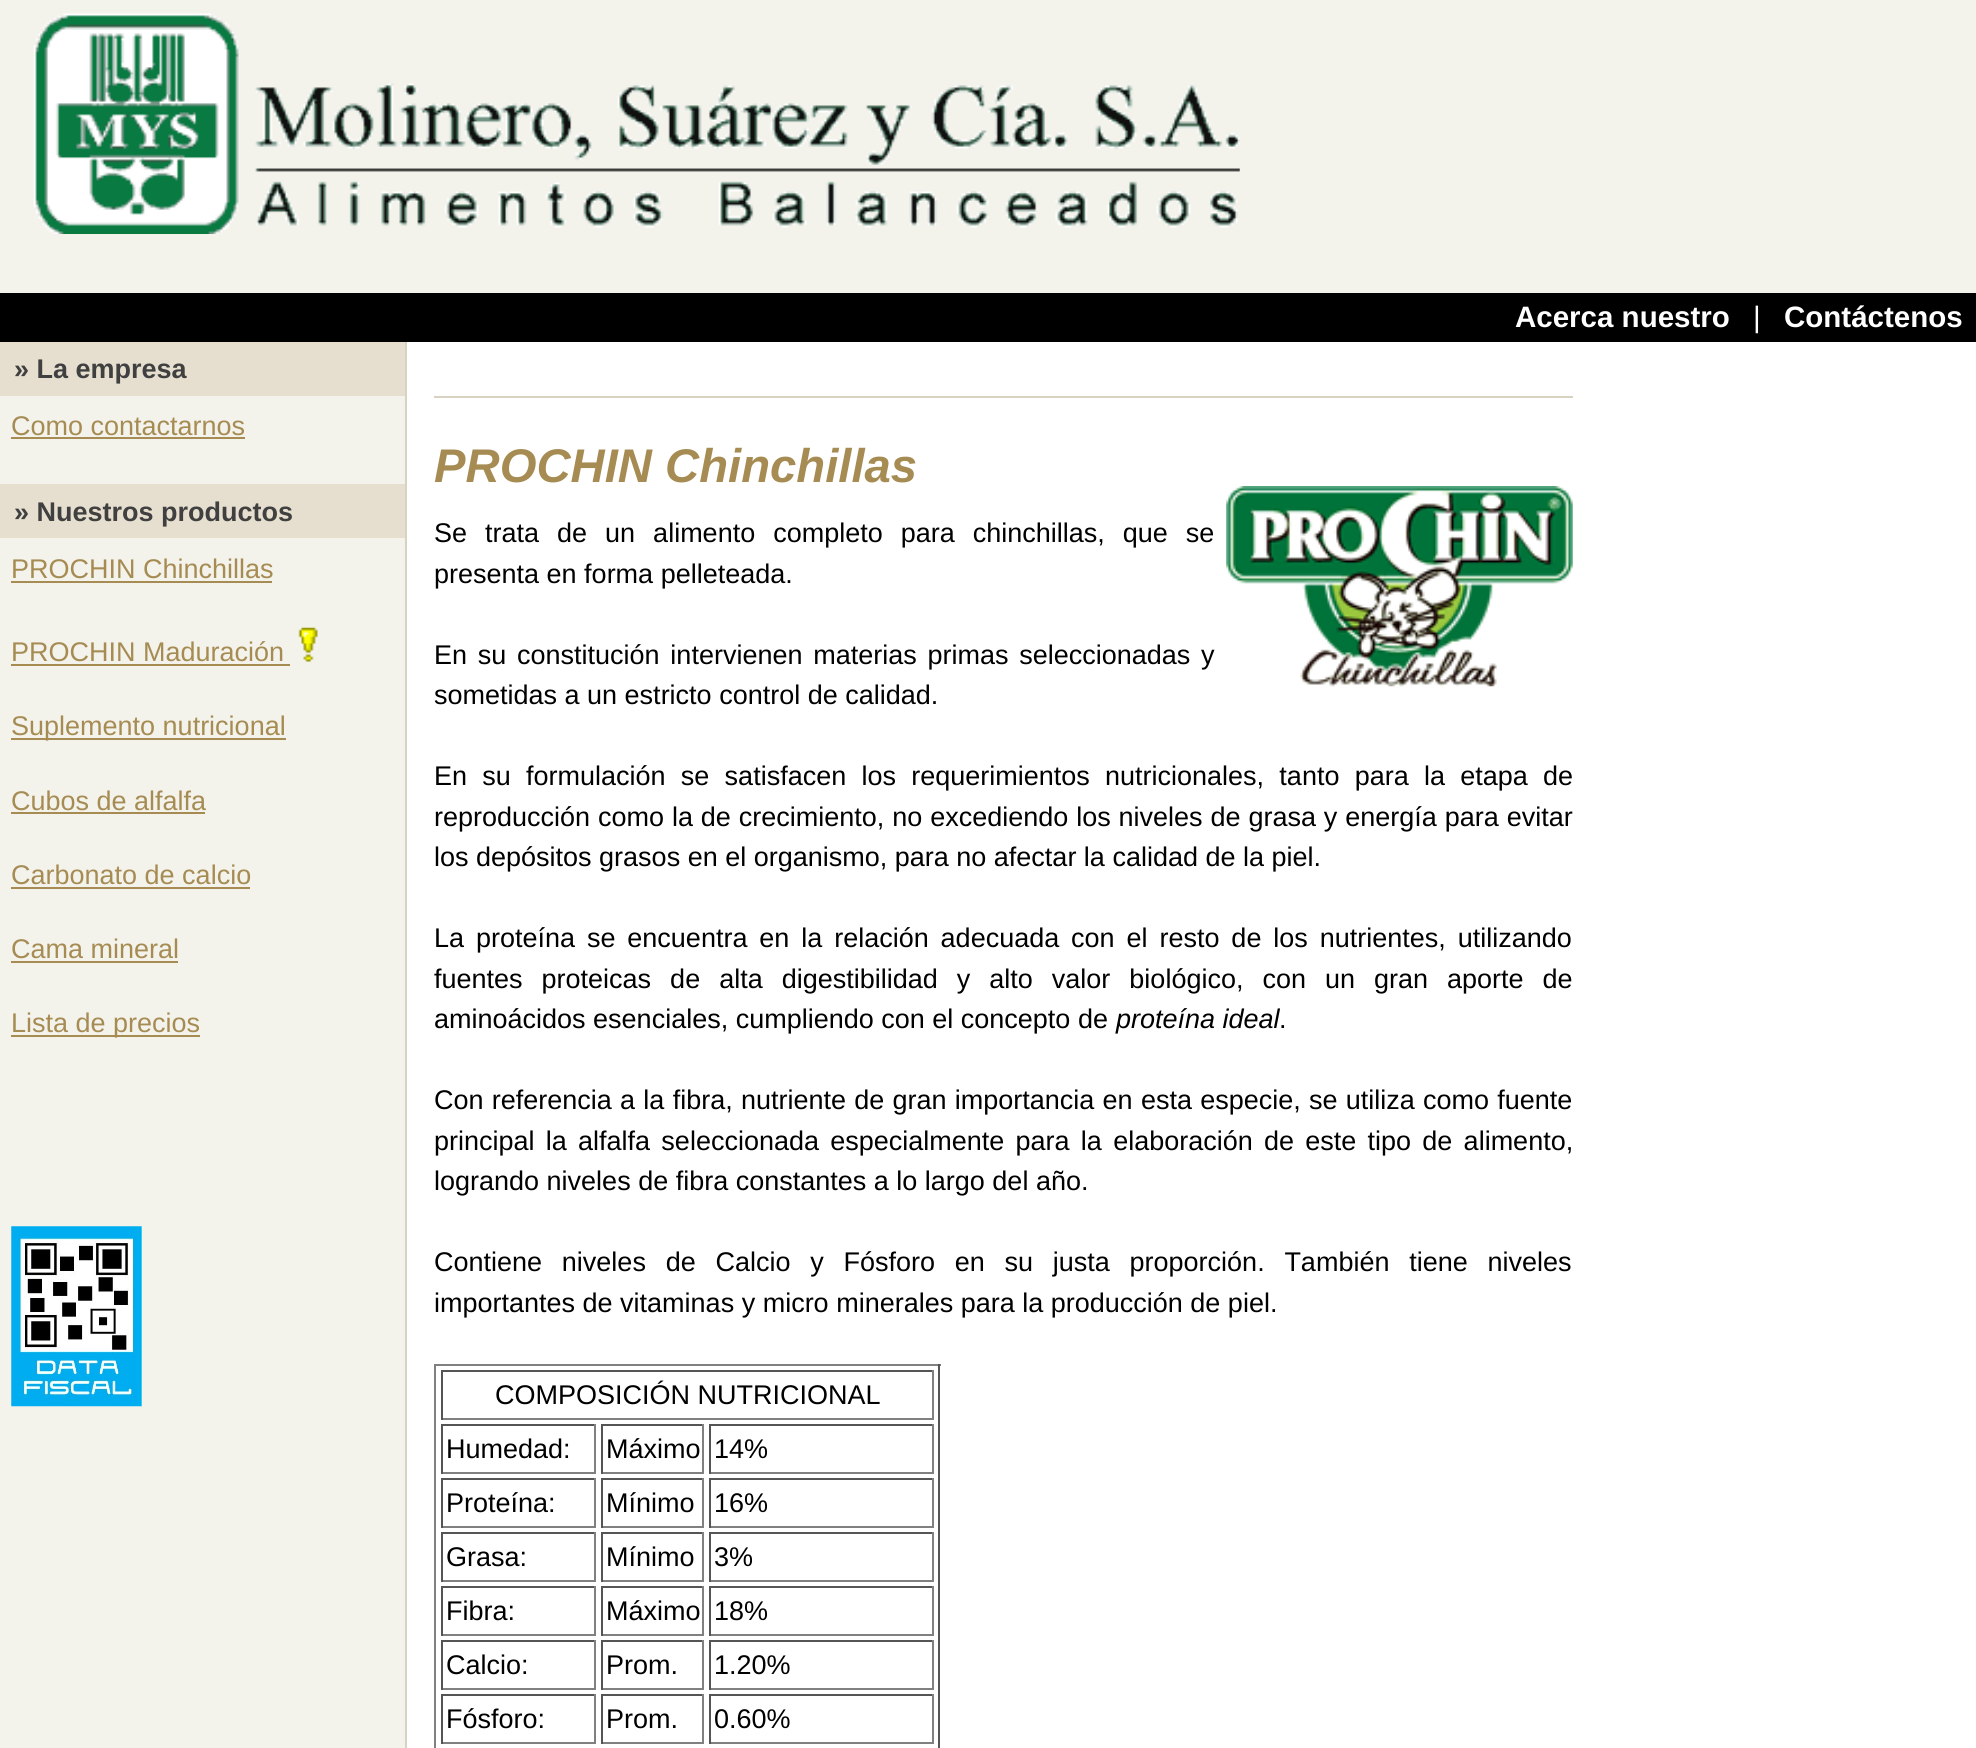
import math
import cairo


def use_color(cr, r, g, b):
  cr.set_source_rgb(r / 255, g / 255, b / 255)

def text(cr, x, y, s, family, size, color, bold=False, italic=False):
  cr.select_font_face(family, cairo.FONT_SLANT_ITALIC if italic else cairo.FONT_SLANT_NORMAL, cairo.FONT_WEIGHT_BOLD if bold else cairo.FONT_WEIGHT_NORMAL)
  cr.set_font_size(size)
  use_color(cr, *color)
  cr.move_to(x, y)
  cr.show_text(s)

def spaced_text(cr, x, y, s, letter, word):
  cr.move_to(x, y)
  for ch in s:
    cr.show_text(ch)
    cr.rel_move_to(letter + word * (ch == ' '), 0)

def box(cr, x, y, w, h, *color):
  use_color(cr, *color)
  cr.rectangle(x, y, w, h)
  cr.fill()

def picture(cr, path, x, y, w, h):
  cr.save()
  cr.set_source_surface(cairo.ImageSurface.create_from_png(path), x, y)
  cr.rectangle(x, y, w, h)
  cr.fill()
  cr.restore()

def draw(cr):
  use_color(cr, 243, 242, 235)
  cr.paint()
  picture(cr, "img_01.png", 33, 13, 1207, 221)
  box(cr, 0, 293, 1976, 49, 0, 0, 0)
  box(cr, 0, 342, 405, 54, 230, 223, 207)
  box(cr, 11, 437, 234, 2, 166, 140, 83)
  box(cr, 0, 484, 405, 54, 230, 223, 207)
  box(cr, 11, 581, 261, 2, 166, 140, 83)
  box(cr, 11, 664, 279, 2, 166, 140, 83)
  picture(cr, "img_02.png", 298, 627, 20, 35)
  box(cr, 11, 738, 275, 2, 166, 140, 83)
  box(cr, 11, 812, 194, 2, 166, 140, 83)
  box(cr, 11, 887, 239, 2, 166, 140, 83)
  box(cr, 11, 961, 167, 2, 166, 140, 83)
  box(cr, 11, 1035, 189, 2, 166, 140, 83)
  picture(cr, "img_03.png", 11, 1226, 131, 181)
  box(cr, 407, 342, 1569, 1406, 255, 255, 255)
  box(cr, 405, 342, 2, 1406, 216, 210, 195)
  box(cr, 434, 396, 1139, 2, 216, 210, 195)
  picture(cr, "img_04.png", 1226, 486, 347, 201)
  box(cr, 434, 1364, 507, 2, 128, 128, 128)
  box(cr, 938, 1364, 2, 384, 85, 85, 85)
  box(cr, 434, 1364, 2, 384, 128, 128, 128)
  box(cr, 441, 1370, 493, 2, 85, 85, 85)
  box(cr, 932, 1370, 2, 50, 128, 128, 128)
  box(cr, 441, 1418, 493, 2, 128, 128, 128)
  box(cr, 441, 1370, 2, 50, 85, 85, 85)
  box(cr, 441, 1424, 155, 2, 85, 85, 85)
  box(cr, 594, 1424, 2, 50, 128, 128, 128)
  box(cr, 441, 1472, 155, 2, 128, 128, 128)
  box(cr, 441, 1424, 2, 50, 85, 85, 85)
  box(cr, 601, 1424, 103, 2, 85, 85, 85)
  box(cr, 702, 1424, 2, 50, 128, 128, 128)
  box(cr, 601, 1472, 103, 2, 128, 128, 128)
  box(cr, 601, 1424, 2, 50, 85, 85, 85)
  box(cr, 709, 1424, 225, 2, 85, 85, 85)
  box(cr, 932, 1424, 2, 50, 128, 128, 128)
  box(cr, 709, 1472, 225, 2, 128, 128, 128)
  box(cr, 709, 1424, 2, 50, 85, 85, 85)
  box(cr, 441, 1478, 155, 2, 85, 85, 85)
  box(cr, 594, 1478, 2, 50, 128, 128, 128)
  box(cr, 441, 1526, 155, 2, 128, 128, 128)
  box(cr, 441, 1478, 2, 50, 85, 85, 85)
  box(cr, 601, 1478, 103, 2, 85, 85, 85)
  box(cr, 702, 1478, 2, 50, 128, 128, 128)
  box(cr, 601, 1526, 103, 2, 128, 128, 128)
  box(cr, 601, 1478, 2, 50, 85, 85, 85)
  box(cr, 709, 1478, 225, 2, 85, 85, 85)
  box(cr, 932, 1478, 2, 50, 128, 128, 128)
  box(cr, 709, 1526, 225, 2, 128, 128, 128)
  box(cr, 709, 1478, 2, 50, 85, 85, 85)
  box(cr, 441, 1532, 155, 2, 85, 85, 85)
  box(cr, 594, 1532, 2, 50, 128, 128, 128)
  box(cr, 441, 1580, 155, 2, 128, 128, 128)
  box(cr, 441, 1532, 2, 50, 85, 85, 85)
  box(cr, 601, 1532, 103, 2, 85, 85, 85)
  box(cr, 702, 1532, 2, 50, 128, 128, 128)
  box(cr, 601, 1580, 103, 2, 128, 128, 128)
  box(cr, 601, 1532, 2, 50, 85, 85, 85)
  box(cr, 709, 1532, 225, 2, 85, 85, 85)
  box(cr, 932, 1532, 2, 50, 128, 128, 128)
  box(cr, 709, 1580, 225, 2, 128, 128, 128)
  box(cr, 709, 1532, 2, 50, 85, 85, 85)
  box(cr, 441, 1586, 155, 2, 85, 85, 85)
  box(cr, 594, 1586, 2, 50, 128, 128, 128)
  box(cr, 441, 1634, 155, 2, 128, 128, 128)
  box(cr, 441, 1586, 2, 50, 85, 85, 85)
  box(cr, 601, 1586, 103, 2, 85, 85, 85)
  box(cr, 702, 1586, 2, 50, 128, 128, 128)
  box(cr, 601, 1634, 103, 2, 128, 128, 128)
  box(cr, 601, 1586, 2, 50, 85, 85, 85)
  box(cr, 709, 1586, 225, 2, 85, 85, 85)
  box(cr, 932, 1586, 2, 50, 128, 128, 128)
  box(cr, 709, 1634, 225, 2, 128, 128, 128)
  box(cr, 709, 1586, 2, 50, 85, 85, 85)
  box(cr, 441, 1640, 155, 2, 85, 85, 85)
  box(cr, 594, 1640, 2, 50, 128, 128, 128)
  box(cr, 441, 1688, 155, 2, 128, 128, 128)
  box(cr, 441, 1640, 2, 50, 85, 85, 85)
  box(cr, 601, 1640, 103, 2, 85, 85, 85)
  box(cr, 702, 1640, 2, 50, 128, 128, 128)
  box(cr, 601, 1688, 103, 2, 128, 128, 128)
  box(cr, 601, 1640, 2, 50, 85, 85, 85)
  box(cr, 709, 1640, 225, 2, 85, 85, 85)
  box(cr, 932, 1640, 2, 50, 128, 128, 128)
  box(cr, 709, 1688, 225, 2, 128, 128, 128)
  box(cr, 709, 1640, 2, 50, 85, 85, 85)
  box(cr, 441, 1694, 155, 2, 85, 85, 85)
  box(cr, 594, 1694, 2, 50, 128, 128, 128)
  box(cr, 441, 1742, 155, 2, 128, 128, 128)
  box(cr, 441, 1694, 2, 50, 85, 85, 85)
  box(cr, 601, 1694, 103, 2, 85, 85, 85)
  box(cr, 702, 1694, 2, 50, 128, 128, 128)
  box(cr, 601, 1742, 103, 2, 128, 128, 128)
  box(cr, 601, 1694, 2, 50, 85, 85, 85)
  box(cr, 709, 1694, 225, 2, 85, 85, 85)
  box(cr, 932, 1694, 2, 50, 128, 128, 128)
  box(cr, 709, 1742, 225, 2, 128, 128, 128)
  box(cr, 709, 1694, 2, 50, 85, 85, 85)
  text(cr, 1515, 327, "Acerca nuestro", "Liberation Sans", 29.5, (255, 255, 255), bold=True)
  text(cr, 1753, 327, "|", "Liberation Sans", 29.5, (255, 255, 255))
  text(cr, 1784, 327, "Contáctenos", "Liberation Sans", 29.5, (255, 255, 255), bold=True)
  text(cr, 14, 378, "» La empresa", "Liberation Sans", 27, (64, 64, 64), bold=True)
  text(cr, 11, 435, "Como contactarnos", "Liberation Sans", 27, (166, 140, 83))
  text(cr, 14, 521, "» Nuestros productos", "Liberation Sans", 27, (64, 64, 64), bold=True)
  text(cr, 11, 578, "PROCHIN Chinchillas", "Liberation Sans", 27, (166, 140, 83))
  text(cr, 11, 661, "PROCHIN Maduración", "Liberation Sans", 27, (166, 140, 83))
  text(cr, 11, 735, "Suplemento nutricional", "Liberation Sans", 27, (166, 140, 83))
  text(cr, 11, 810, "Cubos de alfalfa", "Liberation Sans", 27, (166, 140, 83))
  text(cr, 11, 884, "Carbonato de calcio", "Liberation Sans", 27, (166, 140, 83))
  text(cr, 11, 958, "Cama mineral", "Liberation Sans", 27, (166, 140, 83))
  text(cr, 11, 1032, "Lista de precios", "Liberation Sans", 27, (166, 140, 83))
  text(cr, 434, 482, "PROCHIN Chinchillas", "Liberation Sans", 47.25, (166, 140, 83), bold=True, italic=True)
  cr.select_font_face("Liberation Sans")
  cr.set_font_size(27)
  use_color(cr, 0, 0, 0)
  spaced_text(cr, 434, 542, "Se trata de un alimento completo para chinchillas, que se", 0, 10.5)
  text(cr, 434, 583, "presenta en forma pelleteada.", "Liberation Sans", 27, (0, 0, 0))
  spaced_text(cr, 434, 664, "En su constitución intervienen materias primas seleccionadas y", 0, 3.25)
  text(cr, 434, 704, "sometidas a un estricto control de calidad.", "Liberation Sans", 27, (0, 0, 0))
  spaced_text(cr, 434, 785, "En su formulación se satisfacen los requerimientos nutricionales, tanto para la etapa de", 0, 7.75)
  spaced_text(cr, 434, 826, "reproducción como la de crecimiento, no excediendo los niveles de grasa y energía para evitar", 0, 0.4)
  text(cr, 434, 866, "los depósitos grasos en el organismo, para no afectar la calidad de la piel.", "Liberation Sans", 27, (0, 0, 0))
  spaced_text(cr, 434, 947, "La proteína se encuentra en la relación adecuada con el resto de los nutrientes, utilizando", 0, 4.4)
  spaced_text(cr, 434, 988, "fuentes proteicas de alta digestibilidad y alto valor biológico, con un gran aporte de", 0, 11.5)
  text(cr, 434, 1028, "aminoácidos esenciales, cumpliendo con el concepto de", "Liberation Sans", 27, (0, 0, 0))
  text(cr, 1116, 1028, "proteína ideal", "Liberation Sans", 27, (0, 0, 0), italic=True)
  text(cr, 1279, 1028, ".", "Liberation Sans", 27, (0, 0, 0))
  spaced_text(cr, 434, 1109, "Con referencia a la fibra, nutriente de gran importancia en esta especie, se utiliza como fuente", 0, 0.75)
  spaced_text(cr, 434, 1150, "principal la alfalfa seleccionada especialmente para la elaboración de este tipo de alimento,", 0, 3.75)
  text(cr, 434, 1190, "logrando niveles de fibra constantes a lo largo del año.", "Liberation Sans", 27, (0, 0, 0))
  spaced_text(cr, 434, 1271, "Contiene niveles de Calcio y Fósforo en su justa proporción. También tiene niveles", 0, 12.25)
  text(cr, 434, 1312, "importantes de vitaminas y micro minerales para la producción de piel.", "Liberation Sans", 27, (0, 0, 0))
  text(cr, 495, 1404, "COMPOSICIÓN NUTRICIONAL", "Liberation Sans", 27, (0, 0, 0))
  text(cr, 446, 1458, "Humedad:", "Liberation Sans", 27, (0, 0, 0))
  text(cr, 606, 1458, "Máximo", "Liberation Sans", 27, (0, 0, 0))
  text(cr, 714, 1458, "14%", "Liberation Sans", 27, (0, 0, 0))
  text(cr, 446, 1512, "Proteína:", "Liberation Sans", 27, (0, 0, 0))
  text(cr, 606, 1512, "Mínimo", "Liberation Sans", 27, (0, 0, 0))
  text(cr, 714, 1512, "16%", "Liberation Sans", 27, (0, 0, 0))
  text(cr, 446, 1566, "Grasa:", "Liberation Sans", 27, (0, 0, 0))
  text(cr, 606, 1566, "Mínimo", "Liberation Sans", 27, (0, 0, 0))
  text(cr, 714, 1566, "3%", "Liberation Sans", 27, (0, 0, 0))
  text(cr, 446, 1620, "Fibra:", "Liberation Sans", 27, (0, 0, 0))
  text(cr, 606, 1620, "Máximo", "Liberation Sans", 27, (0, 0, 0))
  text(cr, 714, 1620, "18%", "Liberation Sans", 27, (0, 0, 0))
  text(cr, 446, 1674, "Calcio:", "Liberation Sans", 27, (0, 0, 0))
  text(cr, 606, 1674, "Prom.", "Liberation Sans", 27, (0, 0, 0))
  text(cr, 714, 1674, "1.20%", "Liberation Sans", 27, (0, 0, 0))
  text(cr, 446, 1728, "Fósforo:", "Liberation Sans", 27, (0, 0, 0))
  text(cr, 606, 1728, "Prom.", "Liberation Sans", 27, (0, 0, 0))
  text(cr, 714, 1728, "0.60%", "Liberation Sans", 27, (0, 0, 0))


surface = cairo.ImageSurface(cairo.FORMAT_RGB24, 1976, 1748)
cr = cairo.Context(surface)
options = cairo.FontOptions()
options.set_hint_metrics(cairo.HINT_METRICS_OFF)
options.set_hint_style(cairo.HINT_STYLE_NONE)
cr.set_font_options(options)
cr.set_miter_limit(4)
draw(cr)
surface.write_to_png("out.png")
